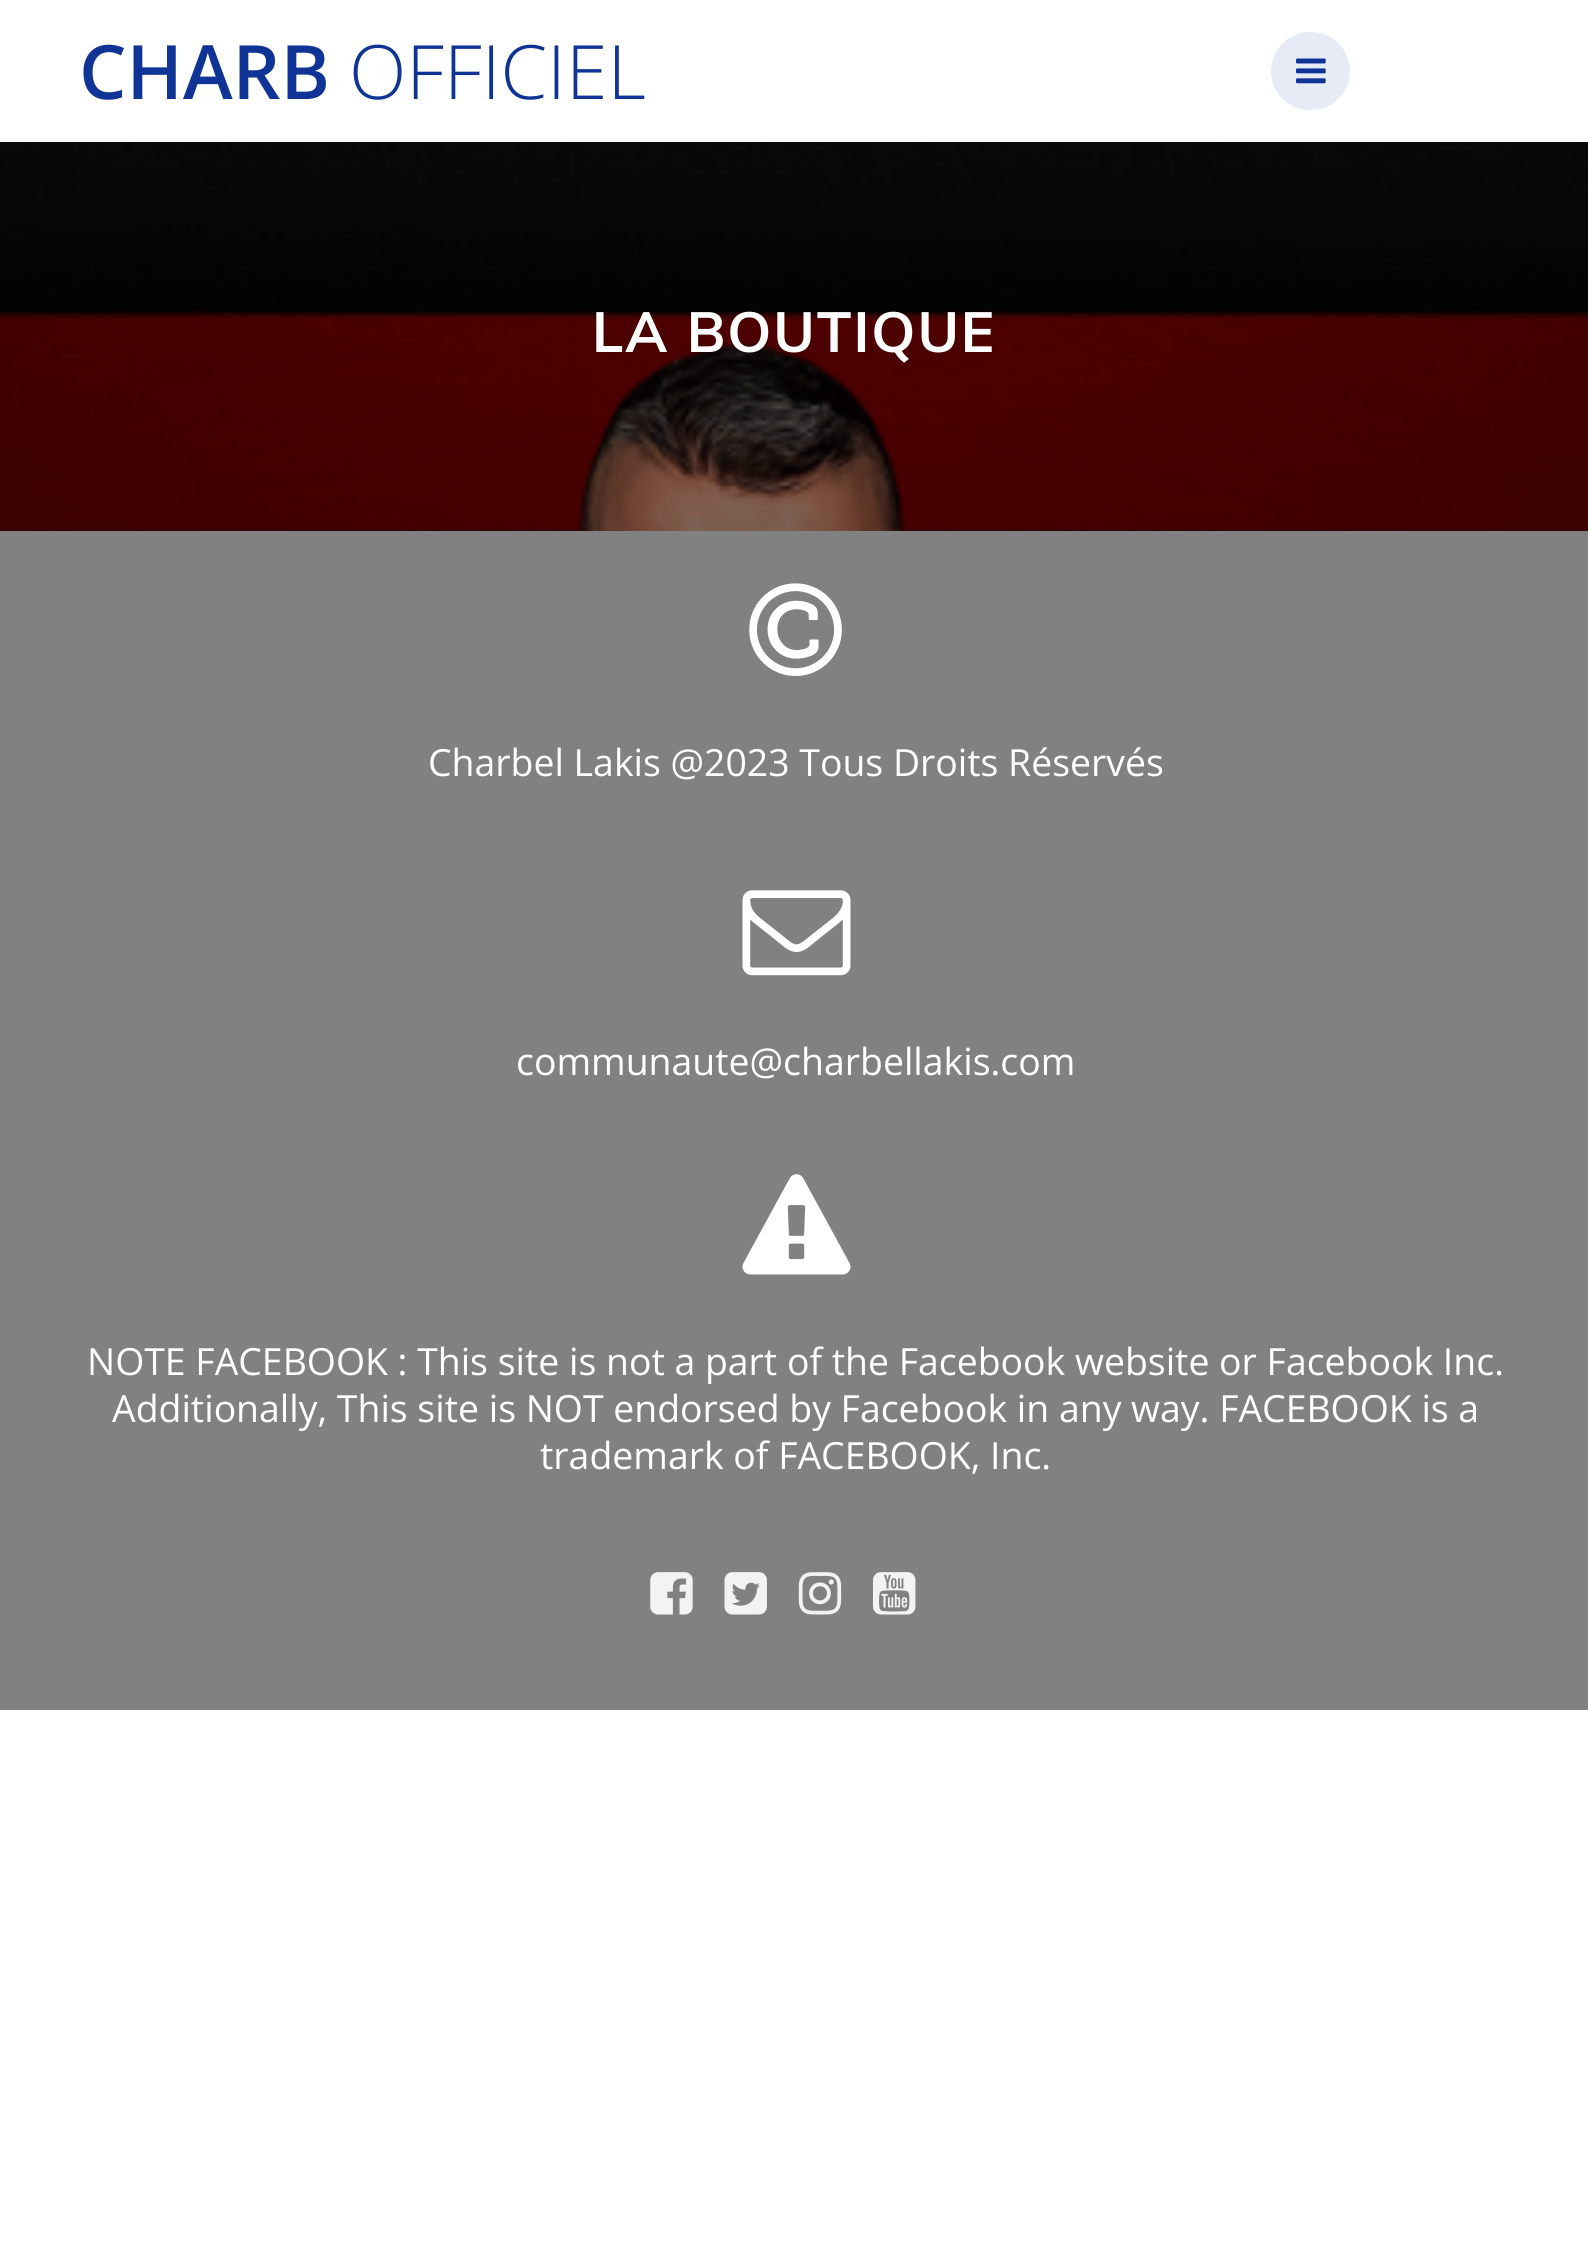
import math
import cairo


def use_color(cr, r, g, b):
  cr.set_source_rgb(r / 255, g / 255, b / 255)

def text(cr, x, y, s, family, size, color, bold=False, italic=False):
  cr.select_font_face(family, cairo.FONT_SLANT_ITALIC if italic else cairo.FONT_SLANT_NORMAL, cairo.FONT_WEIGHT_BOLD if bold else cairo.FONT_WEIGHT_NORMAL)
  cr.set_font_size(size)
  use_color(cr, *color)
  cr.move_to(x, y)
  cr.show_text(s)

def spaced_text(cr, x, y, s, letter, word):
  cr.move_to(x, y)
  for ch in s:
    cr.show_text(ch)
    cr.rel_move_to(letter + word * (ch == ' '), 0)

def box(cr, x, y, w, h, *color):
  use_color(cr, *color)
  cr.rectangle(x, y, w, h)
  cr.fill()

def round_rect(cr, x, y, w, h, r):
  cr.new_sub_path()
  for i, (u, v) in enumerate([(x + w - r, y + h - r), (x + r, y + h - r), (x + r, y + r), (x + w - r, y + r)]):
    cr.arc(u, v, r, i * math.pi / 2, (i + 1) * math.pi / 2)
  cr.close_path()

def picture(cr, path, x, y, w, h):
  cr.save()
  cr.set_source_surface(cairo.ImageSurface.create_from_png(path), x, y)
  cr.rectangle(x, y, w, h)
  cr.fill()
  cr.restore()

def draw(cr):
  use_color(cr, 255, 255, 255)
  cr.paint()
  use_color(cr, 231, 235, 245)
  round_rect(cr, 1271, 32, 79, 78, 39)
  cr.fill()
  picture(cr, "img_01.png", 1296, 58, 30, 26)
  picture(cr, "img_02.png", 0, 142, 1588, 389)
  box(cr, 0, 531, 1588, 1179, 129, 129, 129)
  picture(cr, "img_03.png", 749, 583, 93, 93)
  picture(cr, "img_04.png", 742, 890, 109, 86)
  picture(cr, "img_05.png", 742, 1174, 109, 101)
  picture(cr, "img_06.png", 650, 1572, 43, 43)
  picture(cr, "img_07.png", 724, 1572, 43, 43)
  picture(cr, "img_08.png", 798, 1572, 44, 43)
  picture(cr, "img_09.png", 873, 1572, 43, 43)
  text(cr, 79, 99, "CHARB", "Open Sans SemiBold", 75, (16, 52, 150))
  text(cr, 349, 99, "OFFICIEL", "Open Sans Light", 75, (16, 52, 150))
  cr.select_font_face("Muli", cairo.FONT_SLANT_NORMAL, cairo.FONT_WEIGHT_BOLD)
  cr.set_font_size(56)
  use_color(cr, 255, 255, 255)
  spaced_text(cr, 592, 352, "LA BOUTIQUE", 2, 0)
  text(cr, 428, 776, "Charbel Lakis @2023 Tous Droits Réservés", "Open Sans", 37.4, (255, 255, 255))
  text(cr, 516, 1075, "communaute@charbellakis.com", "Open Sans", 37.4, (255, 255, 255))
  text(cr, 87, 1375, "NOTE FACEBOOK : This site is not a part of the Facebook website or Facebook Inc.", "Open Sans", 37.4, (255, 255, 255))
  text(cr, 112, 1422, "Additionally, This site is NOT endorsed by Facebook in any way. FACEBOOK is a", "Open Sans", 37.4, (255, 255, 255))
  text(cr, 540, 1469, "trademark of FACEBOOK, Inc.", "Open Sans", 37.4, (255, 255, 255))


surface = cairo.ImageSurface(cairo.FORMAT_RGB24, 1588, 2256)
cr = cairo.Context(surface)
options = cairo.FontOptions()
options.set_hint_metrics(cairo.HINT_METRICS_OFF)
options.set_hint_style(cairo.HINT_STYLE_NONE)
cr.set_font_options(options)
cr.set_miter_limit(4)
draw(cr)
surface.write_to_png("out.png")
